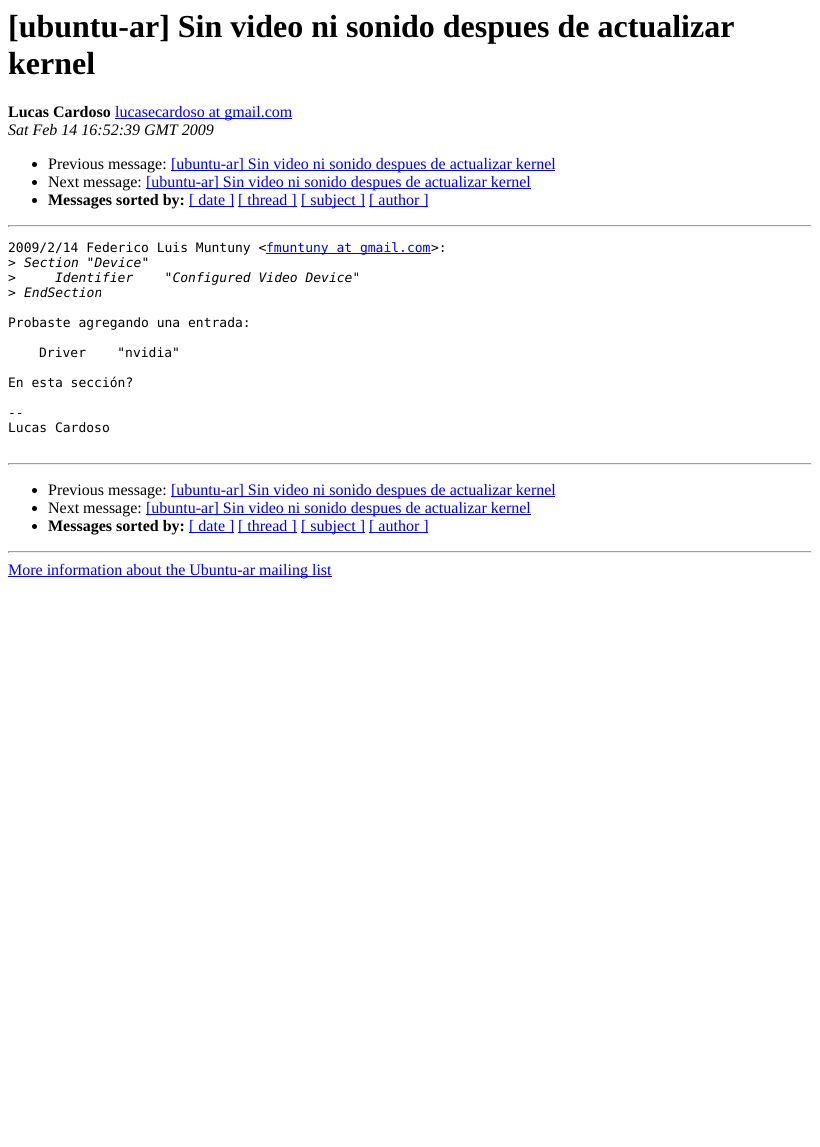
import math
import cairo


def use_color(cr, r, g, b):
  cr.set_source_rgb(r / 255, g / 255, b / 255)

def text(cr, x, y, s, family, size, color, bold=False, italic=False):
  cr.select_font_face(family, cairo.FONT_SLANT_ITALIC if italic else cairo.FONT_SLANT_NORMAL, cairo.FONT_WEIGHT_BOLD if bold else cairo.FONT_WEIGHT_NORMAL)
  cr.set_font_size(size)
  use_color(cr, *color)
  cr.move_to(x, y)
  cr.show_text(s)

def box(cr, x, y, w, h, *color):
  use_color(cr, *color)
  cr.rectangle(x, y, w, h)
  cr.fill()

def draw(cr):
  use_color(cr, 255, 255, 255)
  cr.paint()
  box(cr, 115, 118, 177, 1, 0, 0, 238)
  use_color(cr, 0, 0, 0)
  cr.arc(34.5, 164.5, 2.5, 0, 2 * math.pi)
  cr.fill()
  box(cr, 171, 170, 384, 1, 0, 0, 238)
  use_color(cr, 0, 0, 0)
  cr.arc(34.5, 182.5, 2.5, 0, 2 * math.pi)
  cr.fill()
  box(cr, 146, 188, 385, 1, 0, 0, 238)
  use_color(cr, 0, 0, 0)
  cr.arc(34.5, 200.5, 2.5, 0, 2 * math.pi)
  cr.fill()
  box(cr, 189, 206, 45, 1, 0, 0, 238)
  box(cr, 238, 206, 59, 1, 0, 0, 238)
  box(cr, 301, 206, 64, 1, 0, 0, 238)
  box(cr, 369, 206, 59, 1, 0, 0, 238)
  box(cr, 8, 225, 804, 1, 159, 159, 159)
  box(cr, 811, 225, 1, 2, 238, 238, 238)
  box(cr, 8, 226, 804, 1, 238, 238, 238)
  box(cr, 8, 225, 1, 2, 159, 159, 159)
  box(cr, 266, 253, 165, 1, 0, 0, 238)
  box(cr, 8, 463, 804, 1, 159, 159, 159)
  box(cr, 811, 463, 1, 2, 238, 238, 238)
  box(cr, 8, 464, 804, 1, 238, 238, 238)
  box(cr, 8, 463, 1, 2, 159, 159, 159)
  use_color(cr, 0, 0, 0)
  cr.arc(34.5, 490.5, 2.5, 0, 2 * math.pi)
  cr.fill()
  box(cr, 171, 496, 384, 1, 0, 0, 238)
  use_color(cr, 0, 0, 0)
  cr.arc(34.5, 508.5, 2.5, 0, 2 * math.pi)
  cr.fill()
  box(cr, 146, 514, 385, 1, 0, 0, 238)
  use_color(cr, 0, 0, 0)
  cr.arc(34.5, 526.5, 2.5, 0, 2 * math.pi)
  cr.fill()
  box(cr, 189, 532, 45, 1, 0, 0, 238)
  box(cr, 238, 532, 59, 1, 0, 0, 238)
  box(cr, 301, 532, 64, 1, 0, 0, 238)
  box(cr, 369, 532, 59, 1, 0, 0, 238)
  box(cr, 8, 551, 804, 1, 159, 159, 159)
  box(cr, 811, 551, 1, 2, 238, 238, 238)
  box(cr, 8, 552, 804, 1, 238, 238, 238)
  box(cr, 8, 551, 1, 2, 159, 159, 159)
  box(cr, 8, 576, 324, 1, 0, 0, 238)
  text(cr, 8, 37, "[ubuntu-ar] Sin video ni sonido despues de actualizar", "Liberation Serif", 32, (0, 0, 0), bold=True)
  text(cr, 8, 74, "kernel", "Liberation Serif", 32, (0, 0, 0), bold=True)
  text(cr, 8, 117, "Lucas Cardoso", "Liberation Serif", 16, (0, 0, 0), bold=True)
  text(cr, 115, 117, "lucasecardoso at gmail.com", "Liberation Serif", 16, (0, 0, 238))
  text(cr, 8, 135, "Sat Feb 14 16:52:39 GMT 2009", "Liberation Serif", 16, (0, 0, 0), italic=True)
  text(cr, 48, 169, "Previous message:", "Liberation Serif", 16, (0, 0, 0))
  text(cr, 171, 169, "[ubuntu-ar] Sin video ni sonido despues de actualizar kernel", "Liberation Serif", 16, (0, 0, 238))
  text(cr, 48, 187, "Next message:", "Liberation Serif", 16, (0, 0, 0))
  text(cr, 146, 187, "[ubuntu-ar] Sin video ni sonido despues de actualizar kernel", "Liberation Serif", 16, (0, 0, 238))
  text(cr, 48, 205, "Messages sorted by:", "Liberation Serif", 16, (0, 0, 0), bold=True)
  text(cr, 189, 205, "[ date ]", "Liberation Serif", 16, (0, 0, 238))
  text(cr, 238, 205, "[ thread ]", "Liberation Serif", 16, (0, 0, 238))
  text(cr, 301, 205, "[ subject ]", "Liberation Serif", 16, (0, 0, 238))
  text(cr, 369, 205, "[ author ]", "Liberation Serif", 16, (0, 0, 238))
  text(cr, 8, 252, "2009/2/14 Federico Luis Muntuny <", "DejaVu Sans Mono", 13, (0, 0, 0))
  text(cr, 266, 252, "fmuntuny at gmail.com", "DejaVu Sans Mono", 13, (0, 0, 238))
  text(cr, 431, 252, ">:", "DejaVu Sans Mono", 13, (0, 0, 0))
  text(cr, 8, 267, ">", "DejaVu Sans Mono", 13, (0, 0, 0))
  text(cr, 24, 267, "Section \"Device\"", "DejaVu Sans Mono", 13, (0, 0, 0), italic=True)
  text(cr, 8, 282, ">", "DejaVu Sans Mono", 13, (0, 0, 0))
  text(cr, 55, 282, "Identifier    \"Configured Video Device\"", "DejaVu Sans Mono", 13, (0, 0, 0), italic=True)
  text(cr, 8, 297, ">", "DejaVu Sans Mono", 13, (0, 0, 0))
  text(cr, 24, 297, "EndSection", "DejaVu Sans Mono", 13, (0, 0, 0), italic=True)
  text(cr, 8, 327, "Probaste agregando una entrada:", "DejaVu Sans Mono", 13, (0, 0, 0))
  text(cr, 39, 357, "Driver    \"nvidia\"", "DejaVu Sans Mono", 13, (0, 0, 0))
  text(cr, 8, 387, "En esta sección?", "DejaVu Sans Mono", 13, (0, 0, 0))
  text(cr, 8, 417, "--", "DejaVu Sans Mono", 13, (0, 0, 0))
  text(cr, 8, 432, "Lucas Cardoso", "DejaVu Sans Mono", 13, (0, 0, 0))
  text(cr, 48, 495, "Previous message:", "Liberation Serif", 16, (0, 0, 0))
  text(cr, 171, 495, "[ubuntu-ar] Sin video ni sonido despues de actualizar kernel", "Liberation Serif", 16, (0, 0, 238))
  text(cr, 48, 513, "Next message:", "Liberation Serif", 16, (0, 0, 0))
  text(cr, 146, 513, "[ubuntu-ar] Sin video ni sonido despues de actualizar kernel", "Liberation Serif", 16, (0, 0, 238))
  text(cr, 48, 531, "Messages sorted by:", "Liberation Serif", 16, (0, 0, 0), bold=True)
  text(cr, 189, 531, "[ date ]", "Liberation Serif", 16, (0, 0, 238))
  text(cr, 238, 531, "[ thread ]", "Liberation Serif", 16, (0, 0, 238))
  text(cr, 301, 531, "[ subject ]", "Liberation Serif", 16, (0, 0, 238))
  text(cr, 369, 531, "[ author ]", "Liberation Serif", 16, (0, 0, 238))
  text(cr, 8, 575, "More information about the Ubuntu-ar mailing list", "Liberation Serif", 16, (0, 0, 238))


surface = cairo.ImageSurface(cairo.FORMAT_RGB24, 820, 1147)
cr = cairo.Context(surface)
options = cairo.FontOptions()
options.set_hint_metrics(cairo.HINT_METRICS_OFF)
options.set_hint_style(cairo.HINT_STYLE_NONE)
cr.set_font_options(options)
cr.set_miter_limit(4)
draw(cr)
surface.write_to_png("out.png")
